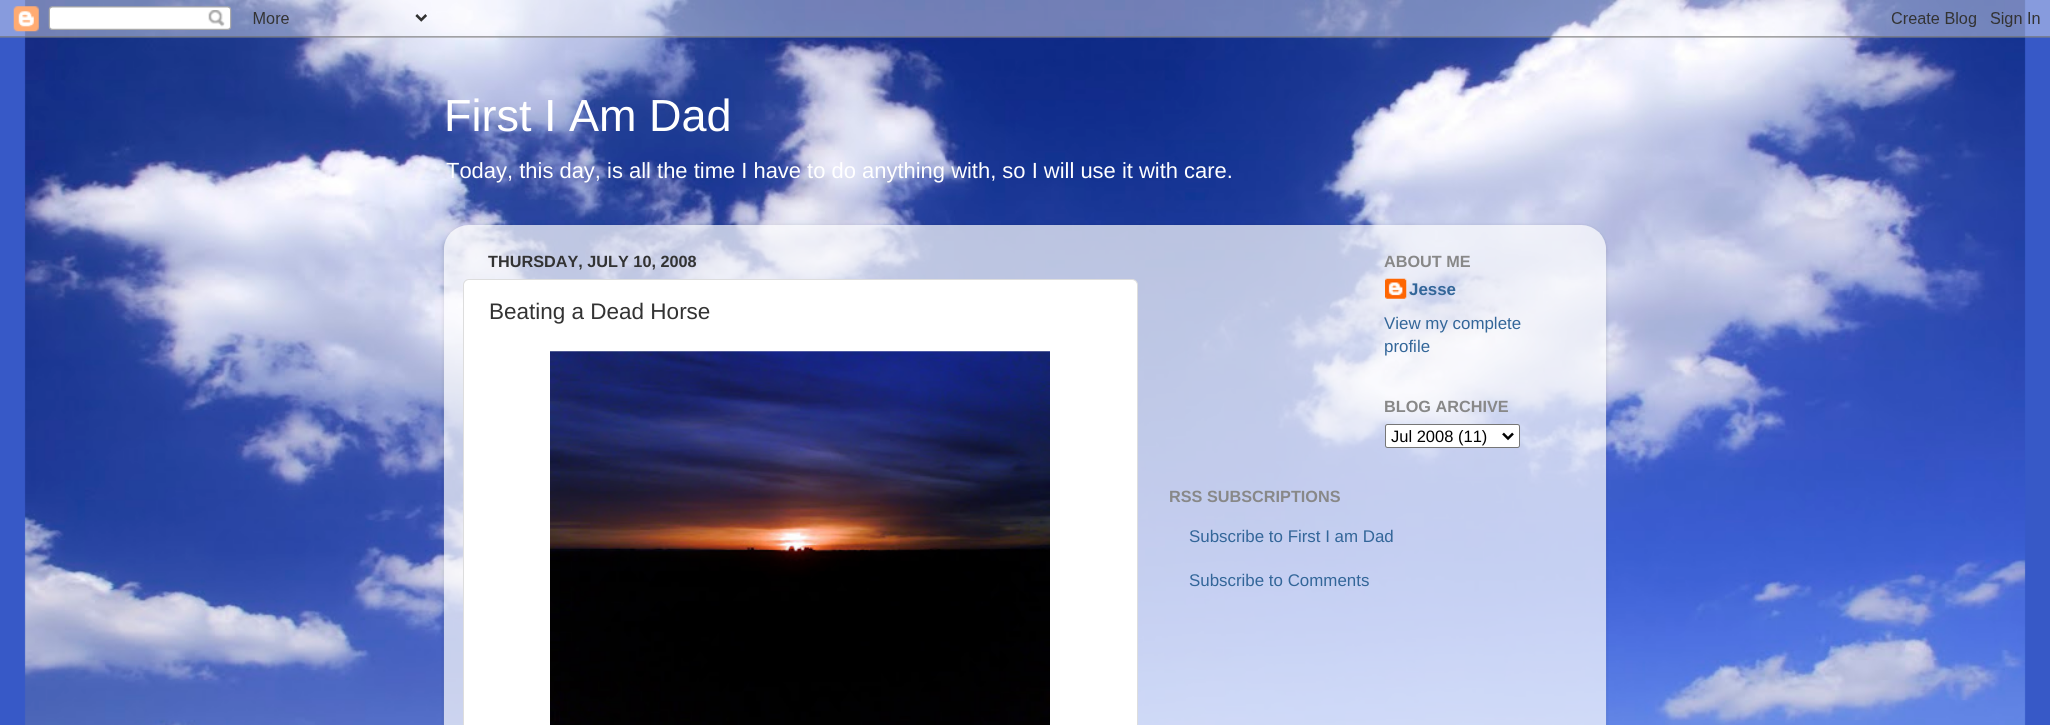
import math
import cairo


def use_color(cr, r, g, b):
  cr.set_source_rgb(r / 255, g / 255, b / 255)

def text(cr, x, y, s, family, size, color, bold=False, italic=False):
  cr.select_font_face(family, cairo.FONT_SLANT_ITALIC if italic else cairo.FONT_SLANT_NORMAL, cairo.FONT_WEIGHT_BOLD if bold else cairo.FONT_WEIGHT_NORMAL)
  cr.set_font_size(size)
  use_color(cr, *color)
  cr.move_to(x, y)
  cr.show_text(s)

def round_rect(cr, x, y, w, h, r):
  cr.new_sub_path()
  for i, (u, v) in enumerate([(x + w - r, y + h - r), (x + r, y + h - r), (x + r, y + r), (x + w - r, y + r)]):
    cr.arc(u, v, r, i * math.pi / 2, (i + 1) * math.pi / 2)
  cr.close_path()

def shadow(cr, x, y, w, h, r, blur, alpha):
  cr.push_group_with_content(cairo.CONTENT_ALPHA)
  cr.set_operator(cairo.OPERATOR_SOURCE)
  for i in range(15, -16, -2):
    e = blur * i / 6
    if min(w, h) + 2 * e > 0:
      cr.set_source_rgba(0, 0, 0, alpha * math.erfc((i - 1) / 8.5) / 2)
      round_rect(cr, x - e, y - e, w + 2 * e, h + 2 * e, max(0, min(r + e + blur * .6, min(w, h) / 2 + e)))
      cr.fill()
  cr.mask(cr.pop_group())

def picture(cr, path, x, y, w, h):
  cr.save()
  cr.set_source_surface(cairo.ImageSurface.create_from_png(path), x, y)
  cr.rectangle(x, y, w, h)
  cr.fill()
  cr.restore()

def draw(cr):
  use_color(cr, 55, 89, 199)
  cr.paint()
  picture(cr, "img_01.png", 24, 0, 2002, 725)
  picture(cr, "img_02.png", 0, 0, 2050, 38)
  cr.save()
  cr.set_fill_rule(cairo.FILL_RULE_EVEN_ODD)
  cr.new_path()
  cr.move_to(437, 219)
  cr.line_to(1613, 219)
  cr.line_to(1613, 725)
  cr.line_to(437, 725)
  cr.close_path()
  cr.move_to(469, 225)
  cr.line_to(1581, 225)
  cr.curve_to(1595, 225, 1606, 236, 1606, 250)
  cr.line_to(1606, 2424)
  cr.line_to(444, 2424)
  cr.line_to(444, 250)
  cr.curve_to(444, 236, 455, 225, 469, 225)
  cr.close_path()
  cr.clip()
  use_color(cr, 0, 0, 0)
  shadow(cr, 444, 226, 1162, 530, 25, 2, 0.15)
  cr.restore()
  picture(cr, "img_03.png", 443, 225, 1164, 500)
  use_color(cr, 255, 255, 255)
  round_rect(cr, 463.5, 279.5, 674, 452, 5.5)
  cr.fill_preserve()
  use_color(cr, 221, 221, 221)
  cr.set_line_width(1)
  cr.stroke()
  picture(cr, "img_04.png", 550, 351, 500, 374)
  picture(cr, "img_05.png", 1385, 278, 22, 21)
  use_color(cr, 255, 255, 255)
  round_rect(cr, 1385.5, 424.5, 134, 23, 2)
  cr.fill_preserve()
  use_color(cr, 118, 118, 118)
  cr.stroke()
  cr.new_path()
  cr.move_to(1503, 433.5)
  cr.line_to(1508, 438.5)
  cr.line_to(1513, 433.5)
  use_color(cr, 0, 0, 0)
  cr.set_line_width(2.5)
  cr.stroke()
  text(cr, 444, 131, "First I Am Dad", "Liberation Sans", 45, (255, 255, 255))
  text(cr, 446, 178, "Today, this day, is all the time I have to do anything with, so I will use it with care.", "Liberation Sans", 21.95, (255, 255, 255))
  text(cr, 488, 267, "THURSDAY, JULY 10, 2008", "Liberation Sans", 16.25, (51, 51, 51), bold=True)
  text(cr, 489, 319, "Beating a Dead Horse", "Liberation Sans", 22.5, (51, 51, 51))
  text(cr, 1384, 267, "ABOUT ME", "Liberation Sans", 16.25, (136, 136, 136), bold=True)
  text(cr, 1409, 295, "Jesse", "Liberation Sans", 16.9, (51, 102, 153), bold=True)
  text(cr, 1384, 329, "View my complete", "Liberation Sans", 16.9, (51, 102, 153))
  text(cr, 1384, 352, "profile", "Liberation Sans", 16.9, (51, 102, 153))
  text(cr, 1384, 412, "BLOG ARCHIVE", "Liberation Sans", 16.25, (136, 136, 136), bold=True)
  text(cr, 1391, 442, "Jul 2008 (11)", "Liberation Sans", 16.5, (0, 0, 0))
  text(cr, 1169, 502, "RSS SUBSCRIPTIONS", "Liberation Sans", 16.25, (136, 136, 136), bold=True)
  text(cr, 1189, 542, "Subscribe to First I am Dad", "Liberation Sans", 16.9, (51, 102, 153))
  text(cr, 1189, 586, "Subscribe to Comments", "Liberation Sans", 16.9, (51, 102, 153))


surface = cairo.ImageSurface(cairo.FORMAT_RGB24, 2050, 725)
cr = cairo.Context(surface)
options = cairo.FontOptions()
options.set_hint_metrics(cairo.HINT_METRICS_OFF)
options.set_hint_style(cairo.HINT_STYLE_NONE)
cr.set_font_options(options)
cr.set_miter_limit(4)
draw(cr)
surface.write_to_png("out.png")
